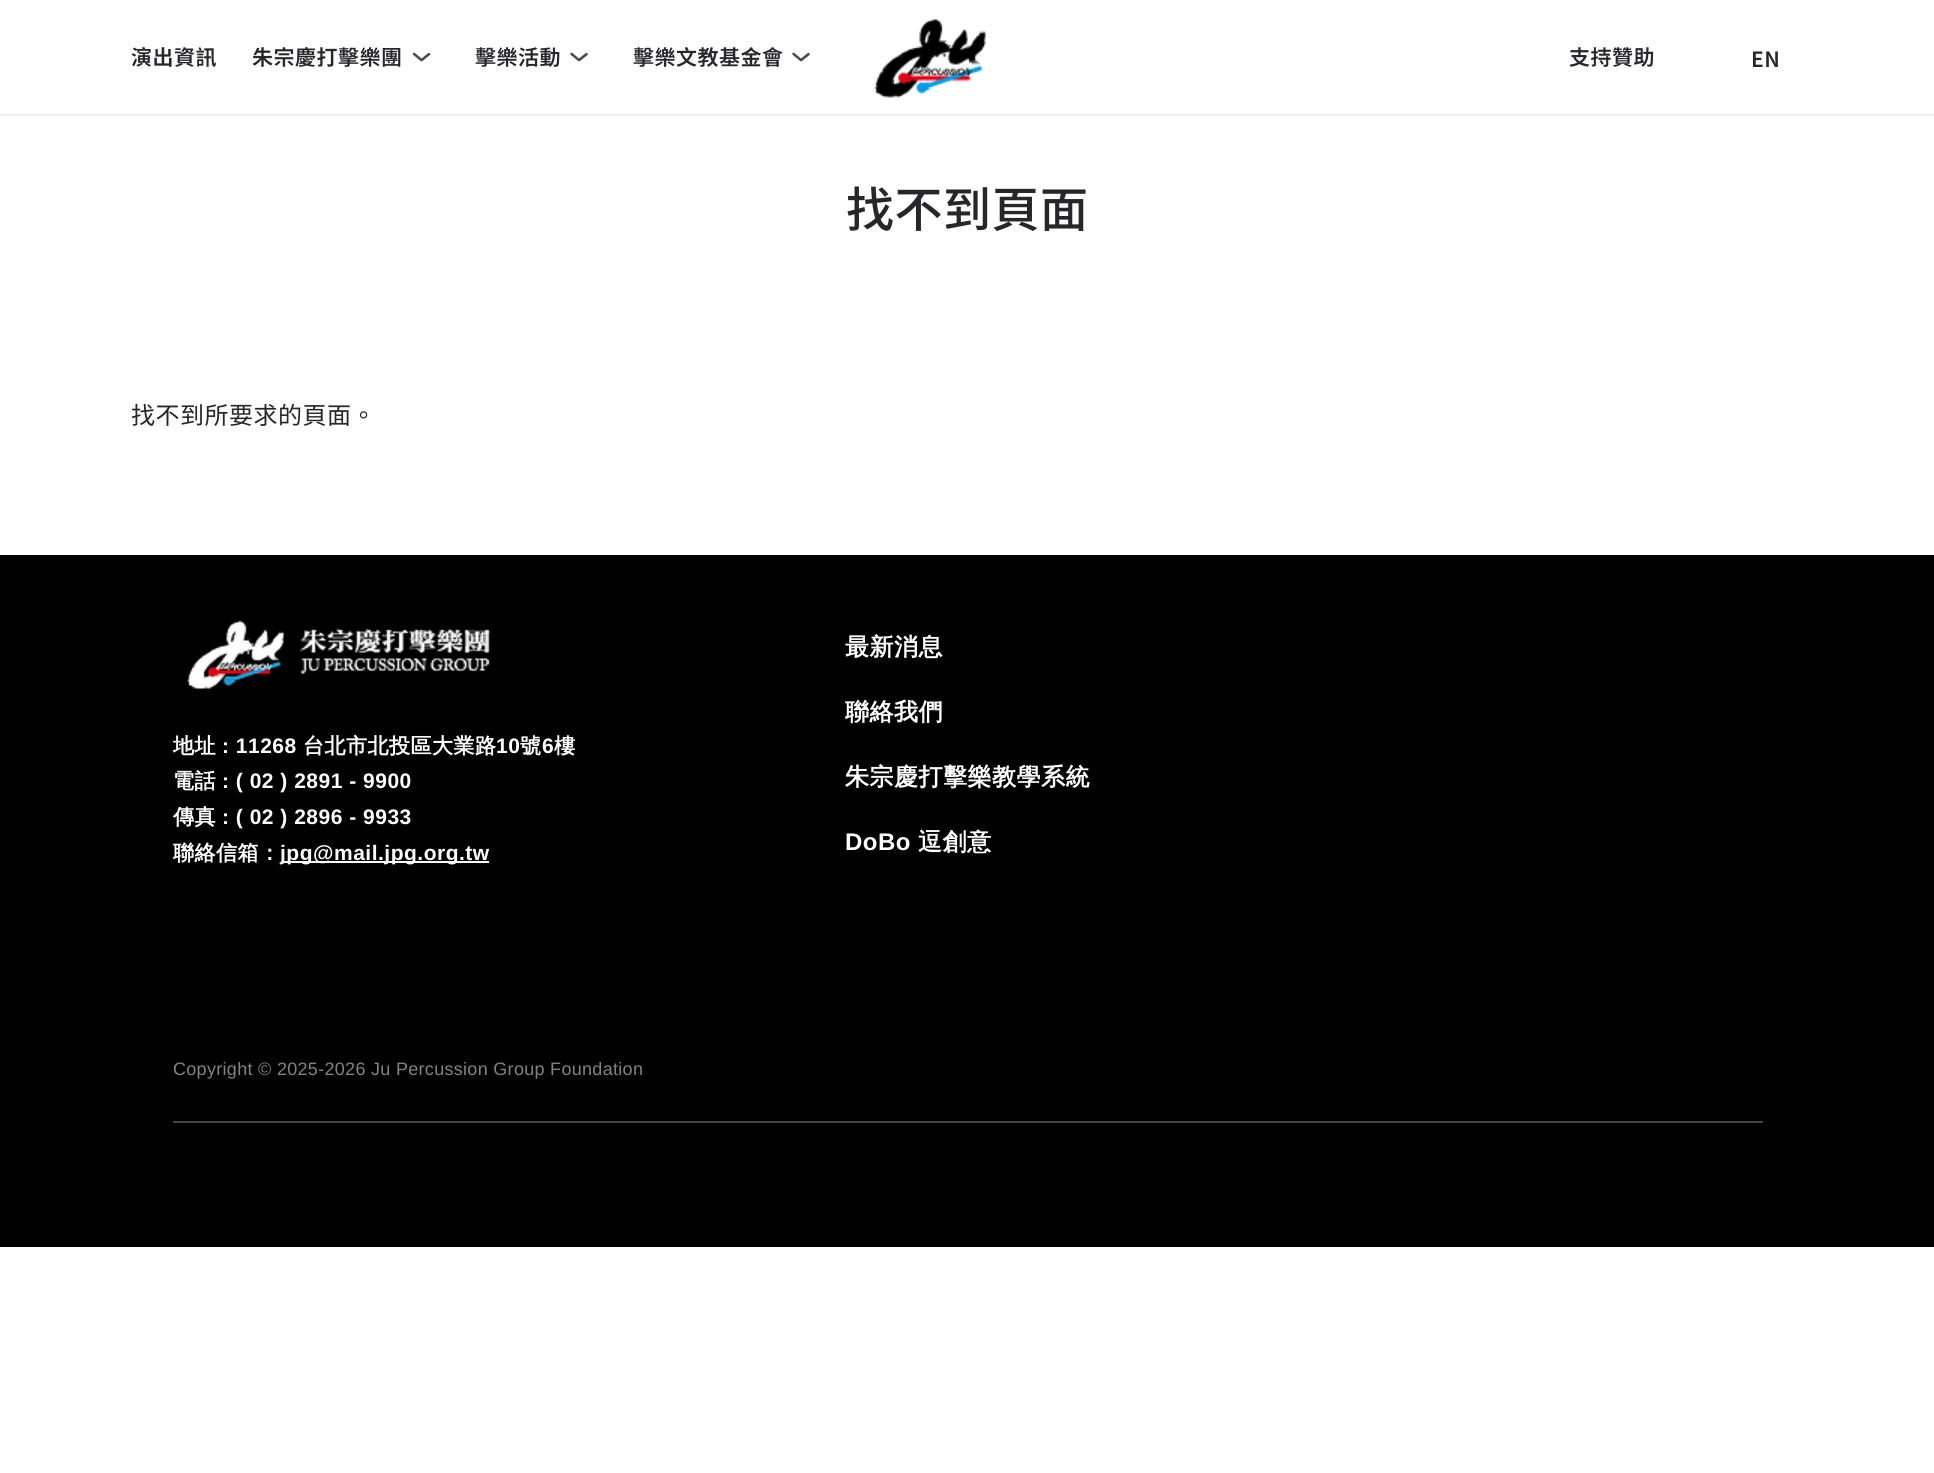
import math
import cairo


def use_color(cr, r, g, b):
  cr.set_source_rgb(r / 255, g / 255, b / 255)

def spaced_text(cr, x, y, s, letter, word):
  cr.move_to(x, y)
  for ch in s:
    cr.show_text(ch)
    cr.rel_move_to(letter + word * (ch == ' '), 0)

def box(cr, x, y, w, h, *color):
  use_color(cr, *color)
  cr.rectangle(x, y, w, h)
  cr.fill()

def picture(cr, path, x, y, w, h):
  cr.save()
  cr.set_source_surface(cairo.ImageSurface.create_from_png(path), x, y)
  cr.rectangle(x, y, w, h)
  cr.fill()
  cr.restore()

def draw(cr):
  use_color(cr, 255, 255, 255)
  cr.paint()
  box(cr, 0, 114, 1934, 2, 242, 242, 242)
  picture(cr, "img_01.png", 412, 52, 19, 10)
  picture(cr, "img_02.png", 570, 52, 18, 10)
  picture(cr, "img_02.png", 792, 52, 18, 10)
  picture(cr, "img_03.png", 874, 19, 112, 79)
  box(cr, 0, 555, 1934, 692, 0, 0, 0)
  picture(cr, "img_04.png", 187, 620, 304, 70)
  box(cr, 281, 861, 208, 2, 255, 255, 255)
  box(cr, 173, 1121, 1590, 2, 69, 69, 69)
  cr.select_font_face("Noto Sans TC SemiBold")
  cr.set_font_size(21)
  use_color(cr, 39, 39, 42)
  spaced_text(cr, 131, 65, "演出資訊", 0.5, 0)
  spaced_text(cr, 252, 65, "朱宗慶打擊樂團", 0.5, 0)
  spaced_text(cr, 475, 65, "擊樂活動", 0.5, 0)
  spaced_text(cr, 633, 65, "擊樂文教基金會", 0.5, 0)
  spaced_text(cr, 1569, 65, "支持贊助", 0.5, 0)
  spaced_text(cr, 1751, 67, "EN", 0.5, 0)
  cr.select_font_face("Noto Sans TC Medium")
  cr.set_font_size(48)
  spaced_text(cr, 846, 227, "找不到頁面", 0.5, 0)
  cr.select_font_face("Noto Sans TC")
  cr.set_font_size(24)
  spaced_text(cr, 131, 424, "找不到所要求的頁面。", 0.5, 0)
  cr.select_font_face("WenQuanYi Zen Hei", cairo.FONT_SLANT_NORMAL, cairo.FONT_WEIGHT_BOLD)
  cr.set_font_size(21)
  use_color(cr, 255, 255, 255)
  spaced_text(cr, 173, 753, "地址", 0.5, 0)
  cr.select_font_face("Liberation Sans", cairo.FONT_SLANT_NORMAL, cairo.FONT_WEIGHT_BOLD)
  spaced_text(cr, 222, 753, ": 11268", 0.5, 0)
  cr.select_font_face("WenQuanYi Zen Hei", cairo.FONT_SLANT_NORMAL, cairo.FONT_WEIGHT_BOLD)
  spaced_text(cr, 303, 753, "台北市北投區大業路", 0.5, 0)
  cr.select_font_face("Liberation Sans", cairo.FONT_SLANT_NORMAL, cairo.FONT_WEIGHT_BOLD)
  spaced_text(cr, 496, 753, "10", 0.5, 0)
  cr.select_font_face("WenQuanYi Zen Hei", cairo.FONT_SLANT_NORMAL, cairo.FONT_WEIGHT_BOLD)
  spaced_text(cr, 520, 753, "號", 0.5, 0)
  cr.select_font_face("Liberation Sans", cairo.FONT_SLANT_NORMAL, cairo.FONT_WEIGHT_BOLD)
  spaced_text(cr, 542, 753, "6", 0.5, 0)
  cr.select_font_face("WenQuanYi Zen Hei", cairo.FONT_SLANT_NORMAL, cairo.FONT_WEIGHT_BOLD)
  spaced_text(cr, 554, 753, "樓", 0.5, 0)
  spaced_text(cr, 173, 788, "電話", 0.5, 0)
  cr.select_font_face("Liberation Sans", cairo.FONT_SLANT_NORMAL, cairo.FONT_WEIGHT_BOLD)
  spaced_text(cr, 222, 788, ": ( 02 ) 2891 - 9900", 0.5, 0)
  cr.select_font_face("WenQuanYi Zen Hei", cairo.FONT_SLANT_NORMAL, cairo.FONT_WEIGHT_BOLD)
  spaced_text(cr, 173, 824, "傳真", 0.5, 0)
  cr.select_font_face("Liberation Sans", cairo.FONT_SLANT_NORMAL, cairo.FONT_WEIGHT_BOLD)
  spaced_text(cr, 222, 824, ": ( 02 ) 2896 - 9933", 0.5, 0)
  cr.select_font_face("WenQuanYi Zen Hei", cairo.FONT_SLANT_NORMAL, cairo.FONT_WEIGHT_BOLD)
  spaced_text(cr, 173, 860, "聯絡信箱：", 0.5, 0)
  cr.select_font_face("Liberation Sans", cairo.FONT_SLANT_NORMAL, cairo.FONT_WEIGHT_BOLD)
  spaced_text(cr, 280, 860, "jpg@mail.jpg.org.tw", 0.5, 0)
  cr.select_font_face("WenQuanYi Zen Hei", cairo.FONT_SLANT_NORMAL, cairo.FONT_WEIGHT_BOLD)
  cr.set_font_size(24)
  spaced_text(cr, 845, 655, "最新消息", 0.5, 0)
  spaced_text(cr, 845, 720, "聯絡我們", 0.5, 0)
  spaced_text(cr, 845, 785, "朱宗慶打擊樂教學系統", 0.5, 0)
  cr.select_font_face("Liberation Sans", cairo.FONT_SLANT_NORMAL, cairo.FONT_WEIGHT_BOLD)
  spaced_text(cr, 845, 850, "DoBo", 0.5, 0)
  cr.select_font_face("WenQuanYi Zen Hei", cairo.FONT_SLANT_NORMAL, cairo.FONT_WEIGHT_BOLD)
  spaced_text(cr, 918, 850, "逗創意", 0.5, 0)
  cr.select_font_face("Liberation Sans")
  cr.set_font_size(18)
  use_color(cr, 131, 131, 133)
  spaced_text(cr, 173, 1075, "Copyright © 2025-2026 Ju Percussion Group Foundation", 0.3, 0)


surface = cairo.ImageSurface(cairo.FORMAT_RGB24, 1934, 1473)
cr = cairo.Context(surface)
options = cairo.FontOptions()
options.set_hint_metrics(cairo.HINT_METRICS_OFF)
options.set_hint_style(cairo.HINT_STYLE_NONE)
cr.set_font_options(options)
cr.set_miter_limit(4)
draw(cr)
surface.write_to_png("out.png")
